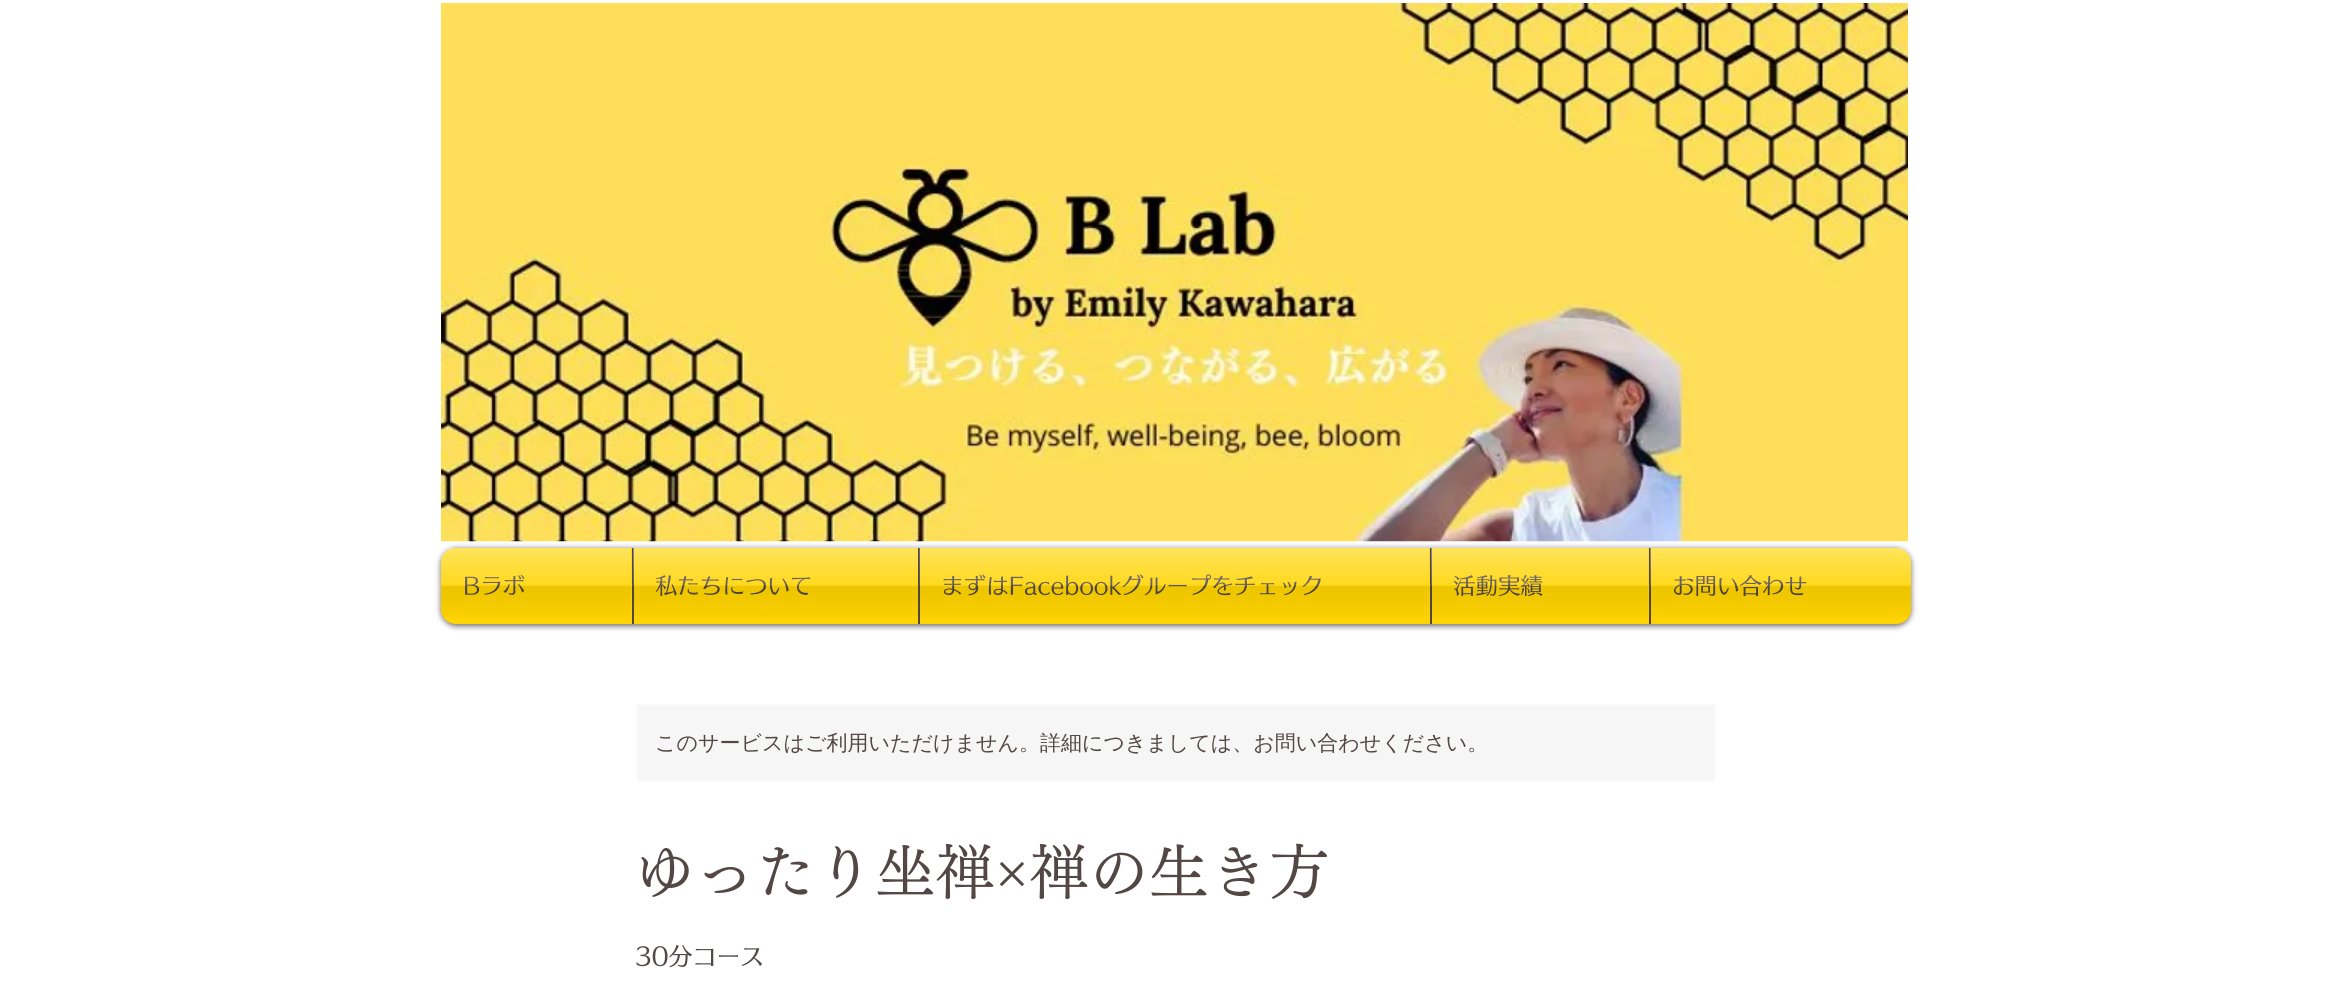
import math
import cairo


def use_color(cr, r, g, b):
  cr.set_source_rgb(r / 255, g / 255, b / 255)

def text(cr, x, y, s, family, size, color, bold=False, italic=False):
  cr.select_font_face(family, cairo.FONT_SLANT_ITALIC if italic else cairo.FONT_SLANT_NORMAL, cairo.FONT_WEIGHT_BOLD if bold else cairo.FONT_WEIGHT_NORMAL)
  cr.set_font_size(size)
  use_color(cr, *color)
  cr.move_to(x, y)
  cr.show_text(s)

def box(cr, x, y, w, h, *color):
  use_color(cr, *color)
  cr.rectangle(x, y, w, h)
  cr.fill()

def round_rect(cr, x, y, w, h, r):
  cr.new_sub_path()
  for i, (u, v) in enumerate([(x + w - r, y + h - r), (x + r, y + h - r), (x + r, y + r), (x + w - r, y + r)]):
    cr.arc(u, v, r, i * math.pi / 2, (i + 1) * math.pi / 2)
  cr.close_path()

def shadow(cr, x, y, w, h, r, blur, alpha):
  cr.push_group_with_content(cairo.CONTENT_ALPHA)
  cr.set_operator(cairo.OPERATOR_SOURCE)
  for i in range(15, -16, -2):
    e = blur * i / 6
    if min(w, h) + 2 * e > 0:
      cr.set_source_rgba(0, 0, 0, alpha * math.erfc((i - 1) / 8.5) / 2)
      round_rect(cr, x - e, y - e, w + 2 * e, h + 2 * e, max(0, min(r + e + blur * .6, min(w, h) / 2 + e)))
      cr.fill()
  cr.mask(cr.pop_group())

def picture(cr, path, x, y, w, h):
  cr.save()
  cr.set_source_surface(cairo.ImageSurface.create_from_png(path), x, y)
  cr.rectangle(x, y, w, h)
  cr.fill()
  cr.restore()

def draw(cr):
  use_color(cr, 255, 255, 255)
  cr.paint()
  picture(cr, "img_01.png", 441, 3, 1467, 539)
  use_color(cr, 0, 0, 0)
  shadow(cr, 441, 549, 1470, 77, 15, 3, 0.6)
  picture(cr, "img_02.png", 441, 548, 1470, 67)
  use_color(cr, 255, 212, 0)
  cr.new_path()
  cr.move_to(456, 548)
  cr.line_to(632, 548)
  cr.line_to(632, 624)
  cr.line_to(456, 624)
  cr.curve_to(447.5, 624, 441, 617.5, 441, 609)
  cr.line_to(441, 563)
  cr.curve_to(441, 554.5, 447.5, 548, 456, 548)
  cr.close_path()
  cr.fill()
  box(cr, 634, 548, 284, 76, 255, 212, 0)
  box(cr, 632, 548, 2, 76, 83, 71, 69)
  box(cr, 920, 548, 510, 76, 255, 212, 0)
  box(cr, 918, 548, 2, 76, 83, 71, 69)
  box(cr, 1432, 548, 217, 76, 255, 212, 0)
  box(cr, 1430, 548, 2, 76, 83, 71, 69)
  use_color(cr, 255, 212, 0)
  cr.new_path()
  cr.move_to(1649, 548)
  cr.line_to(1896, 548)
  cr.curve_to(1904.5, 548, 1911, 554.5, 1911, 563)
  cr.line_to(1911, 609)
  cr.curve_to(1911, 617.5, 1904.5, 624, 1896, 624)
  cr.line_to(1649, 624)
  cr.close_path()
  cr.fill()
  box(cr, 1649, 548, 2, 76, 83, 71, 69)
  use_color(cr, 247, 246, 246)
  round_rect(cr, 636, 704, 1080, 78, 3)
  cr.fill()
  round_rect(cr, 637, 705, 1078, 76, 2)
  cr.set_source_rgba(1, 1, 1, 0.4)
  cr.stroke()
  text(cr, 463, 594, "Bラボ", "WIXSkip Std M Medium", 22.5, (83, 71, 69))
  picture(cr, "img_03.png", 441, 548, 191, 69)
  text(cr, 655, 594, "私たちについて", "WIXSkip Std M Medium", 22.5, (83, 71, 69))
  picture(cr, "img_04.png", 633, 547, 285, 70)
  text(cr, 941, 594, "まずはFacebookグループをチェック", "WIXSkip Std M Medium", 22.5, (83, 71, 69))
  picture(cr, "img_05.png", 919, 547, 511, 70)
  text(cr, 1453, 594, "活動実績", "WIXSkip Std M Medium", 22.5, (83, 71, 69))
  picture(cr, "img_06.png", 1431, 547, 218, 70)
  text(cr, 1672, 594, "お問い合わせ", "WIXSkip Std M Medium", 22.5, (83, 71, 69))
  picture(cr, "img_07.png", 1650, 548, 261, 69)
  text(cr, 655, 750, "このサービスはご利用いただけません。詳細につきましては、お問い合わせください。", "WenQuanYi Zen Hei Medium", 21, (83, 71, 69))
  text(cr, 635, 894, "ゆったり坐禅", "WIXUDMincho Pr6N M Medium", 60, (83, 71, 69))
  text(cr, 995, 894, "×", "Liberation Serif", 60, (83, 71, 69))
  text(cr, 1029, 894, "禅の生き方", "WIXUDMincho Pr6N M Medium", 60, (83, 71, 69))
  text(cr, 635, 965, "30分コース", "WIXSkip Std M Medium", 24, (83, 71, 69))


surface = cairo.ImageSurface(cairo.FORMAT_RGB24, 2350, 982)
cr = cairo.Context(surface)
options = cairo.FontOptions()
options.set_hint_metrics(cairo.HINT_METRICS_OFF)
options.set_hint_style(cairo.HINT_STYLE_NONE)
cr.set_font_options(options)
cr.set_miter_limit(4)
draw(cr)
surface.write_to_png("out.png")
